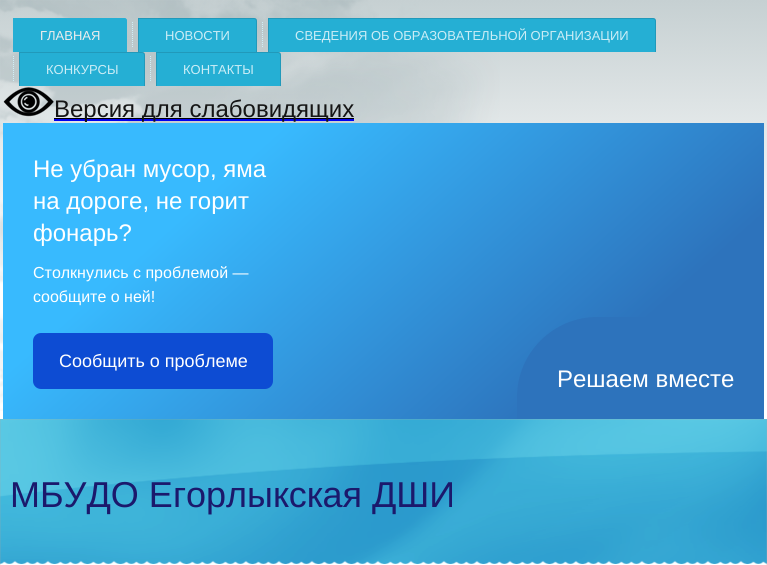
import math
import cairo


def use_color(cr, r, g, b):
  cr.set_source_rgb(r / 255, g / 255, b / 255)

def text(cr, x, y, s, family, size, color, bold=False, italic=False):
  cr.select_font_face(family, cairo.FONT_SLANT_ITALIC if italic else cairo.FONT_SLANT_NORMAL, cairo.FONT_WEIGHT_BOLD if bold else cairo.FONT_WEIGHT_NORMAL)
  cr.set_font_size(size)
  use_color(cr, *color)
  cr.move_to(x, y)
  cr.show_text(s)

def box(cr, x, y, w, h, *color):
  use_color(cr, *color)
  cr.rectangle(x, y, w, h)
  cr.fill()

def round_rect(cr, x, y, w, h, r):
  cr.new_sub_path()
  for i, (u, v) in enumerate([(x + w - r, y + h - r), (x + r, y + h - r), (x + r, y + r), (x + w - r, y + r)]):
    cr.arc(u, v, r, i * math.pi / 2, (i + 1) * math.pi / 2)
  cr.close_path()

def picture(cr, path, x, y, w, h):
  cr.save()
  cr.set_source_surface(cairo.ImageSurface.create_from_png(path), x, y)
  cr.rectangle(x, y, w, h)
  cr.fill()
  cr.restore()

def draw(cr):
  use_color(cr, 255, 255, 255)
  cr.paint()
  picture(cr, "img_01.png", 0, 0, 767, 411)
  use_color(cr, 37, 175, 212)
  cr.new_path()
  cr.move_to(13, 18)
  cr.line_to(124, 18)
  cr.curve_to(125.5, 18, 127, 19.5, 127, 21)
  cr.line_to(127, 52)
  cr.line_to(13, 52)
  cr.close_path()
  cr.fill()
  cr.set_fill_rule(cairo.FILL_RULE_EVEN_ODD)
  cr.new_path()
  cr.move_to(13, 18)
  cr.line_to(124, 18)
  cr.curve_to(126, 18, 127, 19, 127, 21)
  cr.line_to(127, 52)
  cr.line_to(13, 52)
  cr.close_path()
  cr.move_to(14, 19)
  cr.line_to(124, 19)
  cr.curve_to(125, 19, 126, 20, 126, 21)
  cr.line_to(126, 52)
  cr.line_to(14, 52)
  cr.close_path()
  cr.fill()
  picture(cr, "img_02.png", 132, 22, 1, 25)
  cr.new_path()
  cr.move_to(138, 18)
  cr.line_to(254, 18)
  cr.curve_to(255.5, 18, 257, 19.5, 257, 21)
  cr.line_to(257, 52)
  cr.line_to(138, 52)
  cr.close_path()
  cr.fill()
  cr.set_source_rgba(0.118, 0.545, 0.663, 0.6)
  cr.new_path()
  cr.move_to(138, 18)
  cr.line_to(254, 18)
  cr.curve_to(256, 18, 257, 19, 257, 21)
  cr.line_to(257, 52)
  cr.line_to(138, 52)
  cr.close_path()
  cr.move_to(139, 19)
  cr.line_to(254, 19)
  cr.curve_to(255, 19, 256, 20, 256, 21)
  cr.line_to(256, 52)
  cr.line_to(139, 52)
  cr.close_path()
  cr.fill()
  picture(cr, "img_03.png", 262, 22, 1, 25)
  use_color(cr, 37, 175, 212)
  cr.new_path()
  cr.move_to(268, 18)
  cr.line_to(653, 18)
  cr.curve_to(654.5, 18, 656, 19.5, 656, 21)
  cr.line_to(656, 52)
  cr.line_to(268, 52)
  cr.close_path()
  cr.fill()
  cr.set_source_rgba(0.118, 0.545, 0.663, 0.6)
  cr.new_path()
  cr.move_to(268, 18)
  cr.line_to(653, 18)
  cr.curve_to(655, 18, 656, 19, 656, 21)
  cr.line_to(656, 52)
  cr.line_to(268, 52)
  cr.close_path()
  cr.move_to(269, 19)
  cr.line_to(653, 19)
  cr.curve_to(654, 19, 655, 20, 655, 21)
  cr.line_to(655, 52)
  cr.line_to(269, 52)
  cr.close_path()
  cr.fill()
  picture(cr, "img_04.png", 13, 56, 1, 25)
  use_color(cr, 37, 175, 212)
  cr.new_path()
  cr.move_to(19, 52)
  cr.line_to(142, 52)
  cr.curve_to(143.5, 52, 145, 53.5, 145, 55)
  cr.line_to(145, 86)
  cr.line_to(19, 86)
  cr.close_path()
  cr.fill()
  cr.set_source_rgba(0.118, 0.545, 0.663, 0.6)
  cr.new_path()
  cr.move_to(19, 52)
  cr.line_to(142, 52)
  cr.curve_to(144, 52, 145, 53, 145, 55)
  cr.line_to(145, 86)
  cr.line_to(19, 86)
  cr.close_path()
  cr.move_to(20, 53)
  cr.line_to(142, 53)
  cr.curve_to(143, 53, 144, 54, 144, 55)
  cr.line_to(144, 86)
  cr.line_to(20, 86)
  cr.close_path()
  cr.fill()
  picture(cr, "img_05.png", 150, 56, 1, 25)
  use_color(cr, 37, 175, 212)
  cr.new_path()
  cr.move_to(156, 52)
  cr.line_to(278, 52)
  cr.curve_to(279.5, 52, 281, 53.5, 281, 55)
  cr.line_to(281, 86)
  cr.line_to(156, 86)
  cr.close_path()
  cr.fill()
  cr.set_source_rgba(0.118, 0.545, 0.663, 0.6)
  cr.new_path()
  cr.move_to(156, 52)
  cr.line_to(278, 52)
  cr.curve_to(280, 52, 281, 53, 281, 55)
  cr.line_to(281, 86)
  cr.line_to(156, 86)
  cr.close_path()
  cr.move_to(157, 53)
  cr.line_to(278, 53)
  cr.curve_to(279, 53, 280, 54, 280, 55)
  cr.line_to(280, 86)
  cr.line_to(157, 86)
  cr.close_path()
  cr.fill()
  picture(cr, "img_06.png", 3, 87, 51, 30)
  box(cr, 54, 119, 300, 2, 0, 0, 238)
  box(cr, 54, 118, 300, 1, 0, 0, 0)
  gradient = cairo.LinearGradient(142, -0.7, 625, 543)
  gradient.add_color_stop_rgba(0.26, 0.22, 0.729, 0.996, 1)
  gradient.add_color_stop_rgba(0.79, 0.176, 0.451, 0.737, 1)
  cr.set_source(gradient)
  cr.rectangle(3, 123, 761, 296)
  cr.fill()
  use_color(cr, 13, 76, 211)
  round_rect(cr, 33, 333, 240, 56, 8)
  cr.fill()
  use_color(cr, 45, 115, 188)
  cr.new_path()
  cr.move_to(597, 317)
  cr.line_to(764, 317)
  cr.line_to(764, 419)
  cr.line_to(517, 419)
  cr.line_to(517, 397)
  cr.curve_to(517, 353, 553, 317, 597, 317)
  cr.close_path()
  cr.fill()
  picture(cr, "img_07.png", 0, 419, 767, 145)
  cr.rectangle(0.5, 419.5, 766, 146)
  cr.set_source_rgba(0.651, 0.651, 0.651, 0.2)
  cr.set_line_width(1)
  cr.stroke()
  text(cr, 40, 40, "ГЛАВНАЯ", "Liberation Sans", 13, (237, 237, 237))
  text(cr, 165, 40, "НОВОСТИ", "Liberation Sans", 13, (203, 237, 246))
  text(cr, 295, 40, "СВЕДЕНИЯ ОБ ОБРАЗОВАТЕЛЬНОЙ ОРГАНИЗАЦИИ", "Liberation Sans", 13, (203, 237, 246))
  text(cr, 46, 74, "КОНКУРСЫ", "Liberation Sans", 13, (203, 237, 246))
  text(cr, 183, 74, "КОНТАКТЫ", "Liberation Sans", 13, (203, 237, 246))
  text(cr, 54, 117, "Версия для слабовидящих", "Liberation Sans", 24, (21, 21, 21))
  text(cr, 33, 177, "Не убран мусор, яма", "Liberation Sans", 24, (255, 255, 255))
  text(cr, 33, 209, "на дороге, не горит", "Liberation Sans", 24, (255, 255, 255))
  text(cr, 33, 241, "фонарь?", "Liberation Sans", 24, (255, 255, 255))
  text(cr, 33, 278, "Столкнулись с проблемой —", "Liberation Sans", 16, (255, 255, 255))
  text(cr, 33, 302, "сообщите о ней!", "Liberation Sans", 16, (255, 255, 255))
  text(cr, 59, 367, "Сообщить о проблеме", "Liberation Sans", 18, (255, 255, 255))
  text(cr, 557, 387, "Решаем вместе", "Liberation Sans", 24, (255, 255, 255))
  text(cr, 10, 507, "МБУДО Егорлыкская ДШИ", "Liberation Sans", 36, (27, 25, 108))


surface = cairo.ImageSurface(cairo.FORMAT_RGB24, 767, 565)
cr = cairo.Context(surface)
options = cairo.FontOptions()
options.set_hint_metrics(cairo.HINT_METRICS_OFF)
options.set_hint_style(cairo.HINT_STYLE_NONE)
cr.set_font_options(options)
cr.set_miter_limit(4)
draw(cr)
surface.write_to_png("out.png")
